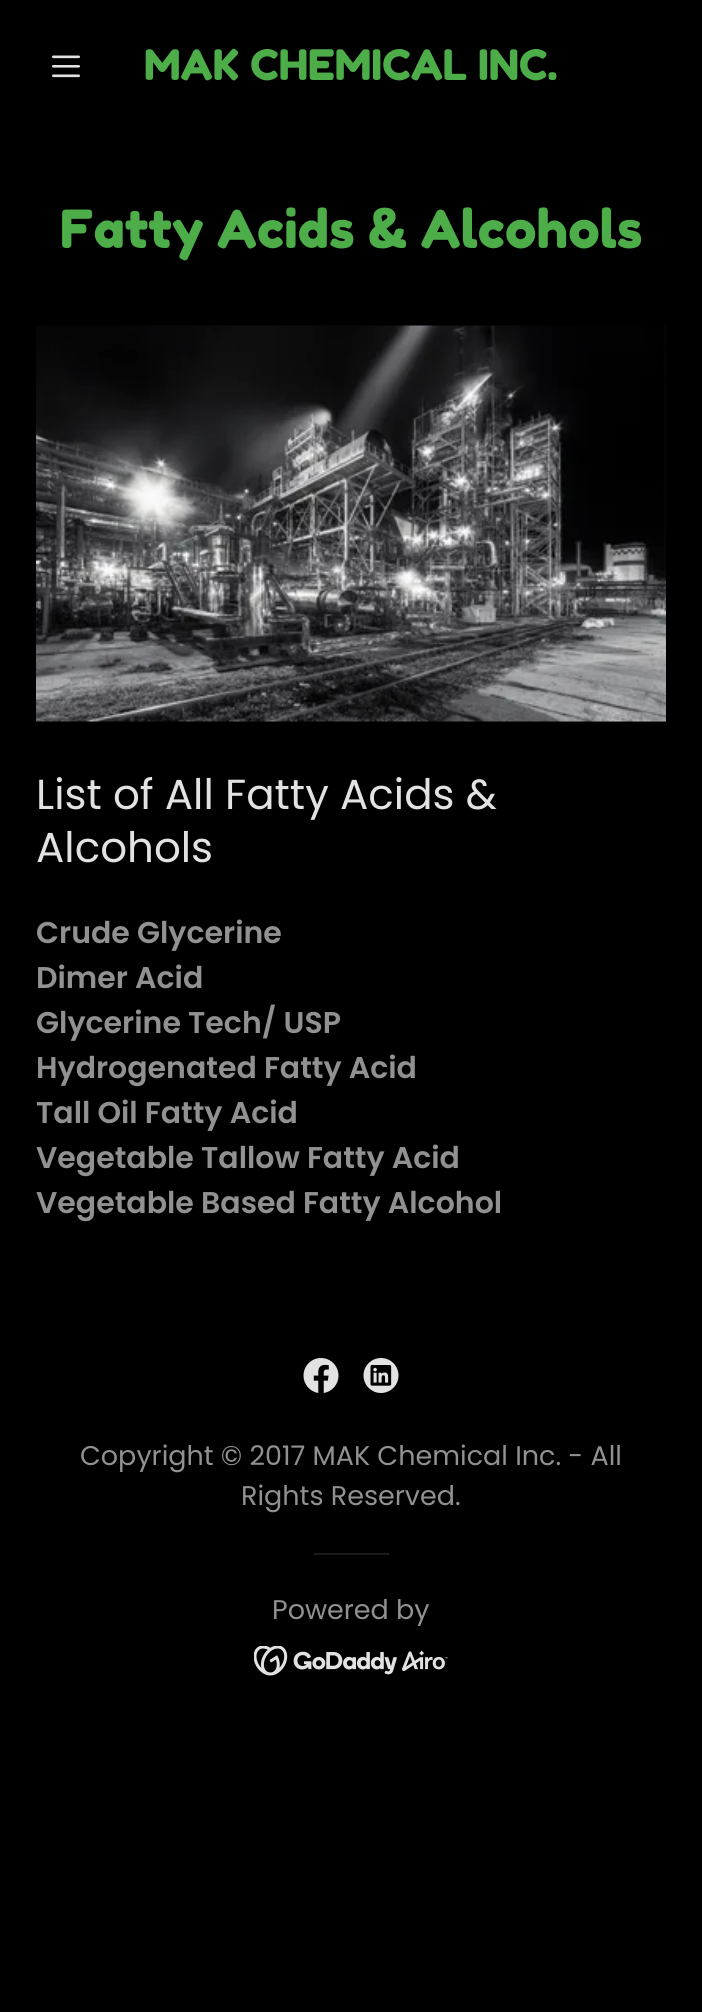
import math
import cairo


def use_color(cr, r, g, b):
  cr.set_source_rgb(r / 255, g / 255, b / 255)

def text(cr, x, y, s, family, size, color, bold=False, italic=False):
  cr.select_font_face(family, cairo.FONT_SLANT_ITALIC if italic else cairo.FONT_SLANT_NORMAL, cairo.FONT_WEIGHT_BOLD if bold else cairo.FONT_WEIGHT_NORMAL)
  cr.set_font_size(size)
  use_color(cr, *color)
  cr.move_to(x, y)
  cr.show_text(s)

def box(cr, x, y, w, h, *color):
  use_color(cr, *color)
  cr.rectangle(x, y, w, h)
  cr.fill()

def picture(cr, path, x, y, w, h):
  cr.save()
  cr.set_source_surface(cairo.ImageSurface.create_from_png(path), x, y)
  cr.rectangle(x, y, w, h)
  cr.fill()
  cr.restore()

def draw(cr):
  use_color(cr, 0, 0, 0)
  cr.paint()
  picture(cr, "img_01.png", 52, 55, 28, 23)
  picture(cr, "img_02.png", 36, 325, 630, 397)
  picture(cr, "img_03.png", 303, 1358, 36, 35)
  picture(cr, "img_04.png", 363, 1358, 36, 35)
  box(cr, 314, 1553, 75, 2, 27, 27, 27)
  picture(cr, "img_05.png", 254, 1646, 194, 30)
  text(cr, 144, 80, "MAK CHEMICAL INC.", "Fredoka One", 42, (76, 173, 73))
  text(cr, 60, 248, "Fatty Acids & Alcohols", "Fredoka One", 52.5, (76, 173, 73))
  text(cr, 36, 809, "List of All Fatty Acids &", "Poppins", 42, (226, 226, 226))
  text(cr, 36, 862, "Alcohols", "Poppins", 42, (226, 226, 226))
  text(cr, 36, 943, "Crude Glycerine", "Poppins SemiBold", 30, (145, 145, 145))
  text(cr, 36, 988, "Dimer Acid", "Poppins SemiBold", 30, (145, 145, 145))
  text(cr, 36, 1033, "Glycerine Tech/ USP", "Poppins SemiBold", 30, (145, 145, 145))
  text(cr, 36, 1078, "Hydrogenated Fatty Acid", "Poppins SemiBold", 30, (145, 145, 145))
  text(cr, 36, 1123, "Tall Oil Fatty Acid", "Poppins SemiBold", 30, (145, 145, 145))
  text(cr, 36, 1168, "Vegetable Tallow Fatty Acid", "Poppins SemiBold", 30, (145, 145, 145))
  text(cr, 36, 1213, "Vegetable Based Fatty Alcohol", "Poppins SemiBold", 30, (145, 145, 145))
  text(cr, 80, 1465, "Copyright © 2017 MAK Chemical Inc. - All", "Poppins", 27, (145, 145, 145))
  text(cr, 241, 1505, "Rights Reserved.", "Poppins", 27, (145, 145, 145))
  text(cr, 272, 1619, "Powered by", "Poppins", 27, (145, 145, 145))


surface = cairo.ImageSurface(cairo.FORMAT_RGB24, 702, 2012)
cr = cairo.Context(surface)
options = cairo.FontOptions()
options.set_hint_metrics(cairo.HINT_METRICS_OFF)
options.set_hint_style(cairo.HINT_STYLE_NONE)
cr.set_font_options(options)
cr.set_miter_limit(4)
draw(cr)
surface.write_to_png("out.png")
